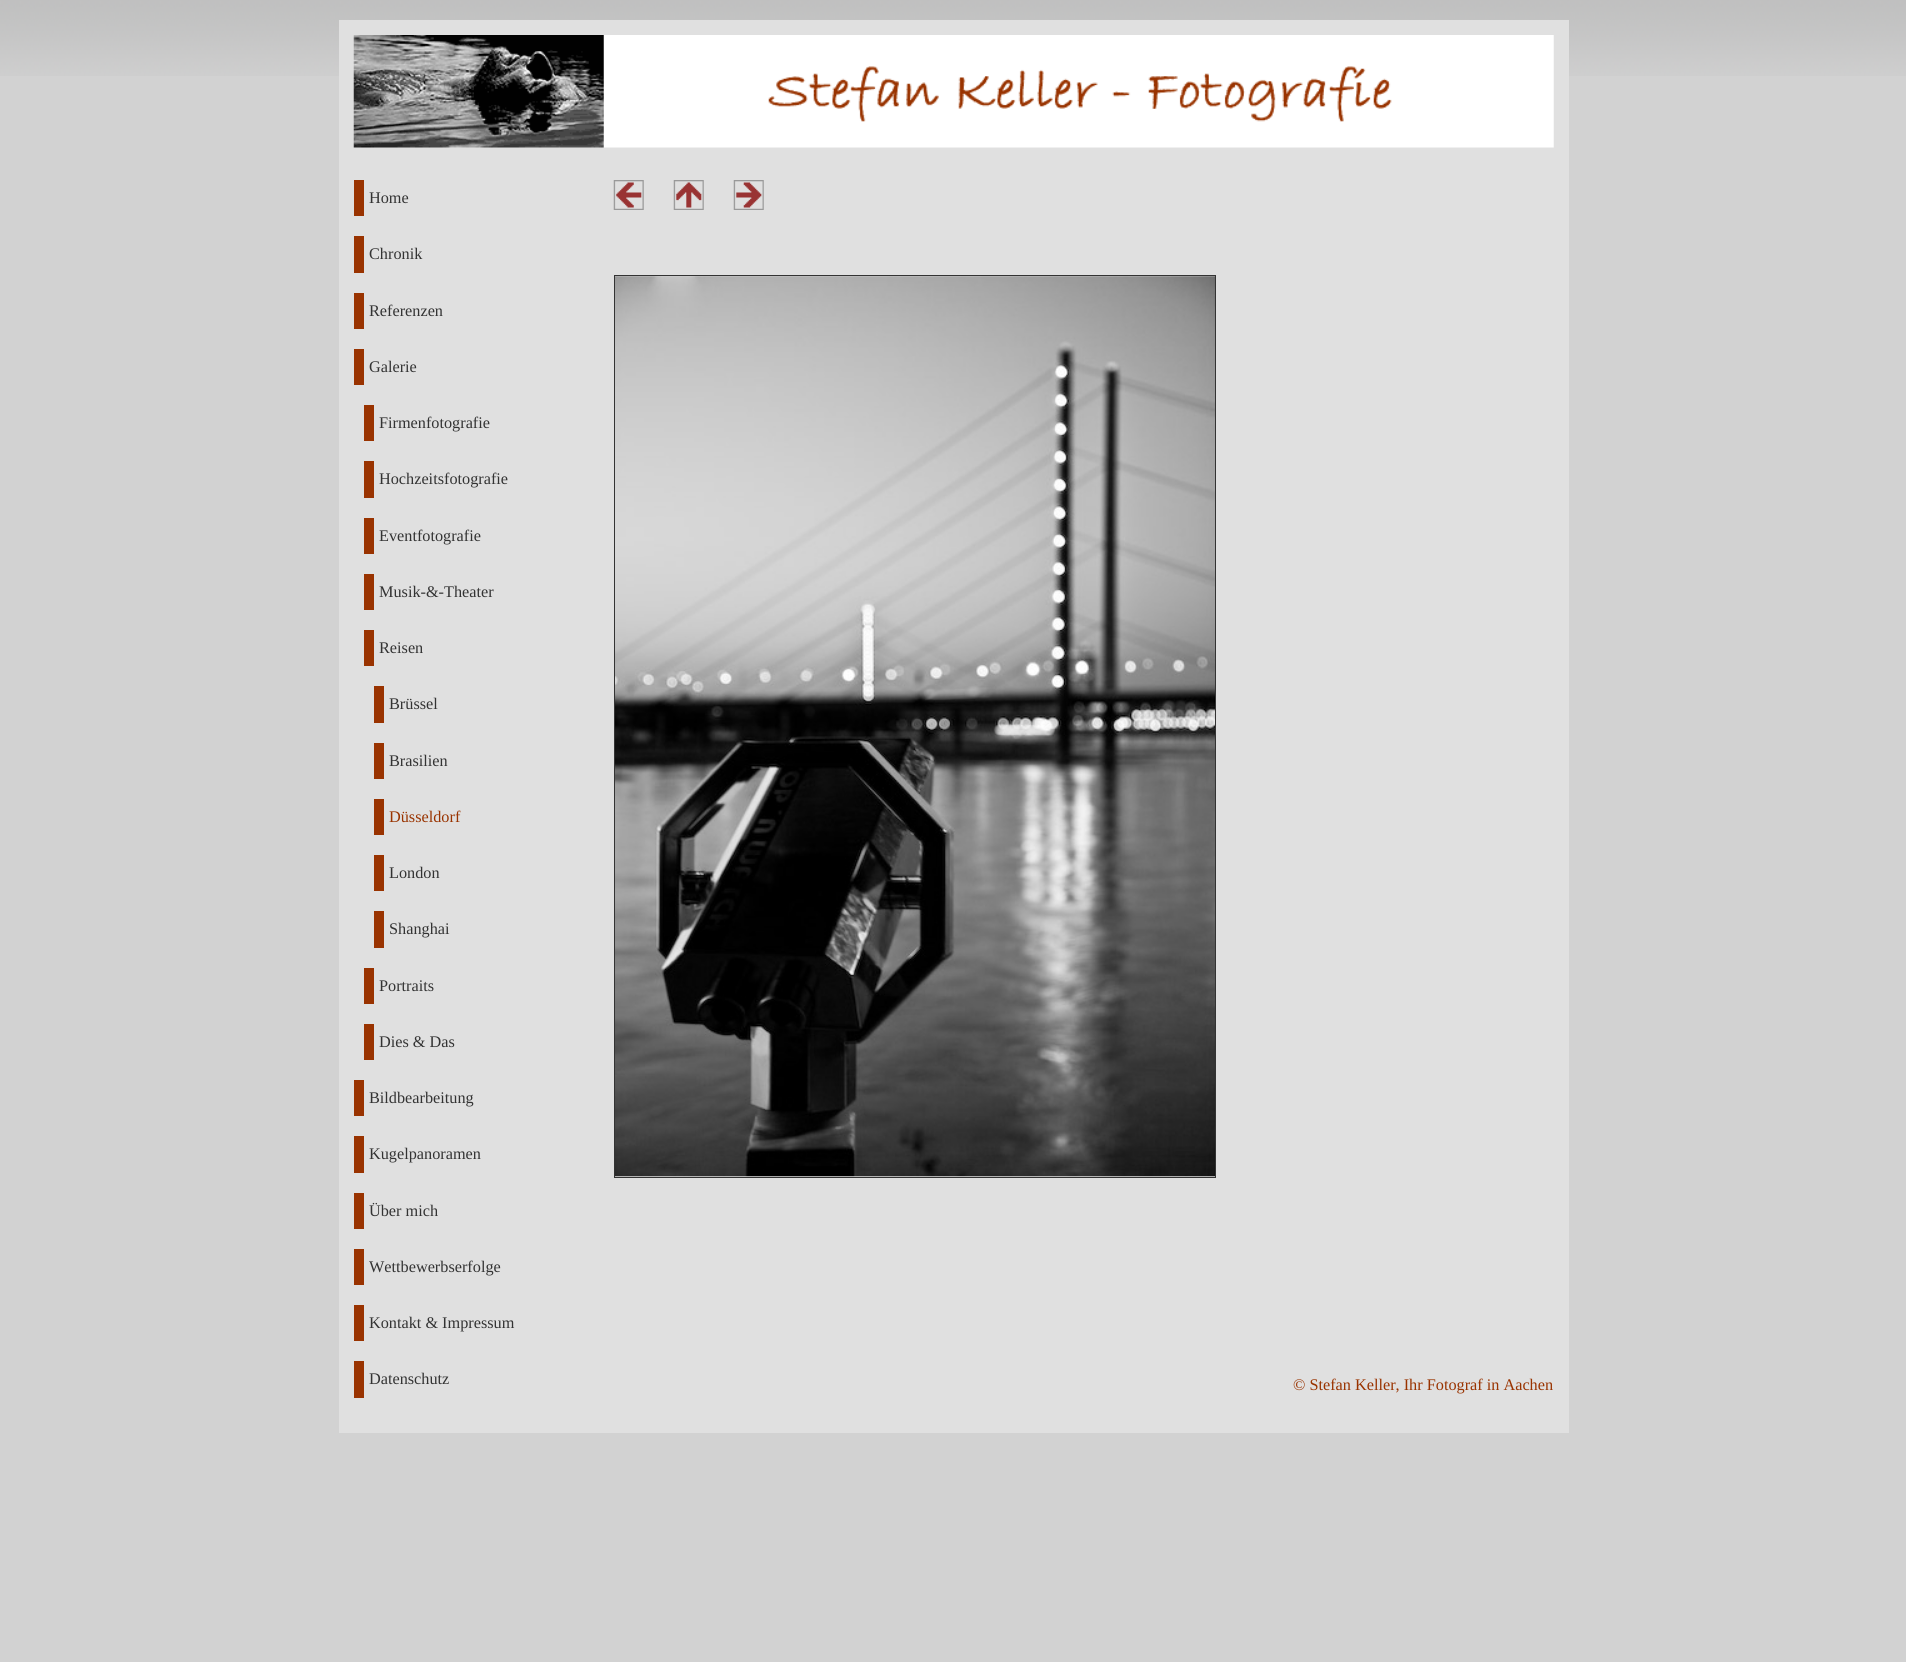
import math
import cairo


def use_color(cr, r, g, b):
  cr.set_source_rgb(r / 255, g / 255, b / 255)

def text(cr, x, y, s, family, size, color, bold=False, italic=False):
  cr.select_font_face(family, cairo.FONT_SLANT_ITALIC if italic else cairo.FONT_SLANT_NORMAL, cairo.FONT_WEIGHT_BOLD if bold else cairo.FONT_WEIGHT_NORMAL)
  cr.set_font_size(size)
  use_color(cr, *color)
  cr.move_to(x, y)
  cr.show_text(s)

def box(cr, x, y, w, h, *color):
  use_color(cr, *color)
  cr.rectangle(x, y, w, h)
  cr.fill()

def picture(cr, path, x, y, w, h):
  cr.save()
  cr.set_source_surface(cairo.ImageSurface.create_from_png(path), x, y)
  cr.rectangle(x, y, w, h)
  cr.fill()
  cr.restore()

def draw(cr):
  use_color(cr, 210, 210, 210)
  cr.paint()
  picture(cr, "img_01.png", 0, 0, 1906, 76)
  box(cr, 339, 20, 1230, 1413, 224, 224, 224)
  picture(cr, "img_02.png", 353, 35, 1201, 113)
  box(cr, 354, 180, 10, 36, 153, 51, 0)
  box(cr, 354, 236, 10, 37, 153, 51, 0)
  box(cr, 354, 293, 10, 36, 153, 51, 0)
  box(cr, 354, 349, 10, 36, 153, 51, 0)
  box(cr, 364, 405, 10, 36, 153, 51, 0)
  box(cr, 364, 461, 10, 37, 153, 51, 0)
  box(cr, 364, 518, 10, 36, 153, 51, 0)
  box(cr, 364, 574, 10, 36, 153, 51, 0)
  box(cr, 364, 630, 10, 36, 153, 51, 0)
  box(cr, 374, 686, 10, 37, 153, 51, 0)
  box(cr, 374, 743, 10, 36, 153, 51, 0)
  box(cr, 374, 799, 10, 36, 153, 51, 0)
  box(cr, 374, 855, 10, 36, 153, 51, 0)
  box(cr, 374, 911, 10, 37, 153, 51, 0)
  box(cr, 364, 968, 10, 36, 153, 51, 0)
  box(cr, 364, 1024, 10, 36, 153, 51, 0)
  box(cr, 354, 1080, 10, 36, 153, 51, 0)
  box(cr, 354, 1136, 10, 37, 153, 51, 0)
  box(cr, 354, 1193, 10, 36, 153, 51, 0)
  box(cr, 354, 1249, 10, 36, 153, 51, 0)
  box(cr, 354, 1305, 10, 36, 153, 51, 0)
  box(cr, 354, 1361, 10, 37, 153, 51, 0)
  picture(cr, "img_03.png", 613, 180, 31, 30)
  picture(cr, "img_04.png", 673, 180, 31, 30)
  picture(cr, "img_05.png", 733, 180, 31, 30)
  cr.rectangle(614.5, 275.5, 601, 902)
  use_color(cr, 51, 51, 51)
  cr.set_line_width(1)
  cr.stroke()
  picture(cr, "img_06.png", 615, 276, 600, 901)
  text(cr, 369, 203, "Home", "Liberation Serif", 16.25, (51, 51, 51))
  text(cr, 369, 259, "Chronik", "Liberation Serif", 16.25, (51, 51, 51))
  text(cr, 369, 316, "Referenzen", "Liberation Serif", 16.25, (51, 51, 51))
  text(cr, 369, 372, "Galerie", "Liberation Serif", 16.25, (51, 51, 51))
  text(cr, 379, 428, "Firmenfotografie", "Liberation Serif", 16.25, (51, 51, 51))
  text(cr, 379, 484, "Hochzeitsfotografie", "Liberation Serif", 16.25, (51, 51, 51))
  text(cr, 379, 541, "Eventfotografie", "Liberation Serif", 16.25, (51, 51, 51))
  text(cr, 379, 597, "Musik-&-Theater", "Liberation Serif", 16.25, (51, 51, 51))
  text(cr, 379, 653, "Reisen", "Liberation Serif", 16.25, (51, 51, 51))
  text(cr, 389, 709, "Brüssel", "Liberation Serif", 16.25, (51, 51, 51))
  text(cr, 389, 766, "Brasilien", "Liberation Serif", 16.25, (51, 51, 51))
  text(cr, 389, 822, "Düsseldorf", "Liberation Serif", 16.25, (153, 51, 0))
  text(cr, 389, 878, "London", "Liberation Serif", 16.25, (51, 51, 51))
  text(cr, 389, 934, "Shanghai", "Liberation Serif", 16.25, (51, 51, 51))
  text(cr, 379, 991, "Portraits", "Liberation Serif", 16.25, (51, 51, 51))
  text(cr, 379, 1047, "Dies & Das", "Liberation Serif", 16.25, (51, 51, 51))
  text(cr, 369, 1103, "Bildbearbeitung", "Liberation Serif", 16.25, (51, 51, 51))
  text(cr, 369, 1159, "Kugelpanoramen", "Liberation Serif", 16.25, (51, 51, 51))
  text(cr, 369, 1216, "Über mich", "Liberation Serif", 16.25, (51, 51, 51))
  text(cr, 369, 1272, "Wettbewerbserfolge", "Liberation Serif", 16.25, (51, 51, 51))
  text(cr, 369, 1328, "Kontakt & Impressum", "Liberation Serif", 16.25, (51, 51, 51))
  text(cr, 369, 1384, "Datenschutz", "Liberation Serif", 16.25, (51, 51, 51))
  text(cr, 1293, 1390, "© Stefan Keller, Ihr Fotograf in Aachen", "Liberation Serif", 16.25, (153, 51, 0))


surface = cairo.ImageSurface(cairo.FORMAT_RGB24, 1906, 1662)
cr = cairo.Context(surface)
options = cairo.FontOptions()
options.set_hint_metrics(cairo.HINT_METRICS_OFF)
options.set_hint_style(cairo.HINT_STYLE_NONE)
cr.set_font_options(options)
cr.set_miter_limit(4)
draw(cr)
surface.write_to_png("out.png")
